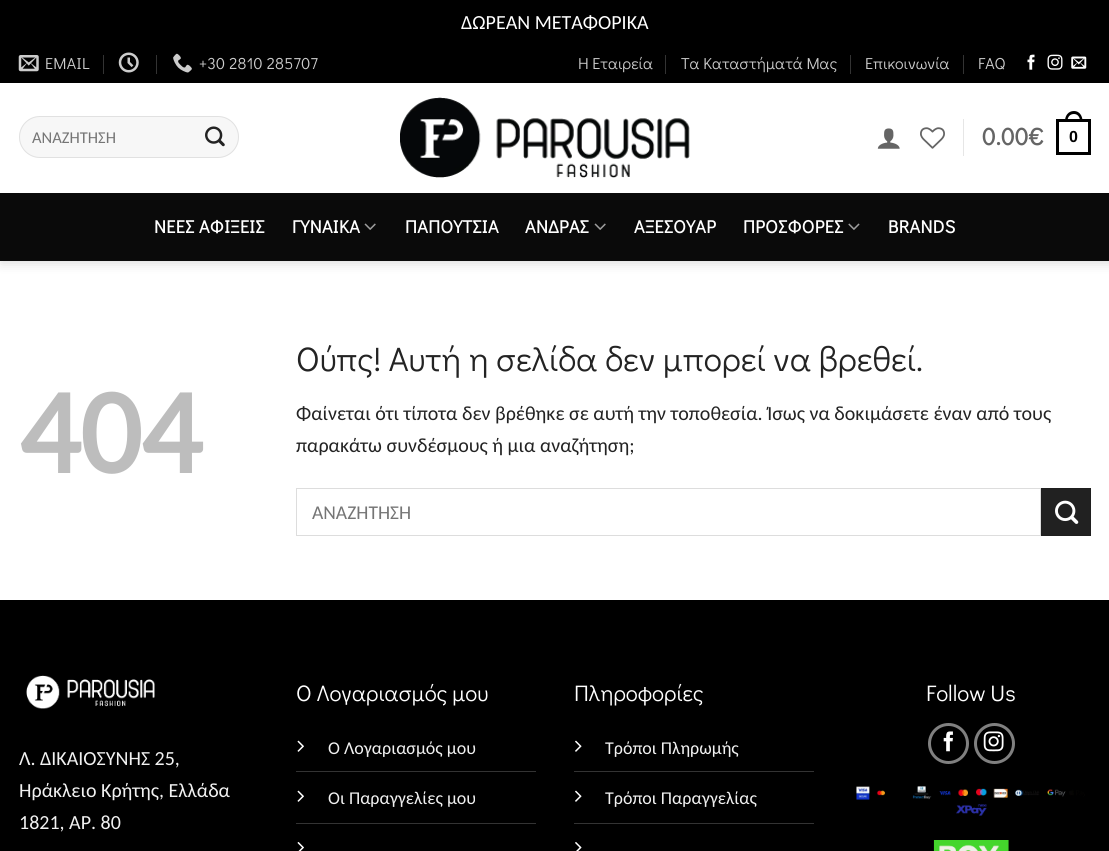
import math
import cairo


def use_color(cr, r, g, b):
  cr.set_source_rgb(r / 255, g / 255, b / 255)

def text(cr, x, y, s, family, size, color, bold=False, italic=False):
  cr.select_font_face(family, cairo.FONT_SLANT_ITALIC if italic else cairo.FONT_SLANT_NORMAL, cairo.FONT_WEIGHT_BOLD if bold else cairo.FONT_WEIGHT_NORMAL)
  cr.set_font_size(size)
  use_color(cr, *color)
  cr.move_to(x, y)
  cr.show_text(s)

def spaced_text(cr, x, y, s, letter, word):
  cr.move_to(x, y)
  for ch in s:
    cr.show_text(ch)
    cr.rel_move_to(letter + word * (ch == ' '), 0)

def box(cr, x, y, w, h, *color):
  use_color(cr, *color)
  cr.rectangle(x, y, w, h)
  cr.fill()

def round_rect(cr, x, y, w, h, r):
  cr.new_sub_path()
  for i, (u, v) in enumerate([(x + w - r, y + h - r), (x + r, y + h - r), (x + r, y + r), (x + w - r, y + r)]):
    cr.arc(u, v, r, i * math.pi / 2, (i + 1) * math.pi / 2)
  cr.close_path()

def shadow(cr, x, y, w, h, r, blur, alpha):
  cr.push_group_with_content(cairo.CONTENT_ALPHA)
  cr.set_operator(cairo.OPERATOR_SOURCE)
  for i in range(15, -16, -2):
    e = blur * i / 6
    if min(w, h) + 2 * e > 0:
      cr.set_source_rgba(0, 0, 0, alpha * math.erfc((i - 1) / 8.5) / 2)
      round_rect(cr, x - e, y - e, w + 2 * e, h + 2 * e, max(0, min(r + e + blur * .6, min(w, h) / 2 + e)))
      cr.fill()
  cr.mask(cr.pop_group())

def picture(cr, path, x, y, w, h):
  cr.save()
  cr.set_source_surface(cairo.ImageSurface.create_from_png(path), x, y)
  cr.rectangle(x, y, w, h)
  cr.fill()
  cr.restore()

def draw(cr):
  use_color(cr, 0, 0, 0)
  cr.paint()
  box(cr, 0, 83, 1109, 517, 255, 255, 255)
  cr.save()
  cr.set_fill_rule(cairo.FILL_RULE_EVEN_ODD)
  cr.new_path()
  cr.move_to(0, 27)
  cr.line_to(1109, 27)
  cr.line_to(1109, 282)
  cr.line_to(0, 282)
  cr.close_path()
  cr.move_to(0, 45)
  cr.line_to(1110, 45)
  cr.line_to(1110, 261)
  cr.line_to(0, 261)
  cr.close_path()
  cr.clip()
  use_color(cr, 0, 0, 0)
  shadow(cr, 1, 46, 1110, 217, 0, 6, 0.15)
  cr.restore()
  picture(cr, "img_01.png", 18, 55, 21, 17)
  box(cr, 103, 55, 1, 19, 51, 51, 51)
  picture(cr, "img_02.png", 118, 52, 21, 21)
  box(cr, 156, 55, 1, 19, 51, 51, 51)
  picture(cr, "img_03.png", 173, 53, 19, 20)
  box(cr, 665, 55, 1, 19, 51, 51, 51)
  box(cr, 850, 55, 1, 19, 51, 51, 51)
  box(cr, 963, 55, 1, 19, 51, 51, 51)
  picture(cr, "img_04.png", 1027, 54, 8, 16)
  picture(cr, "img_05.png", 1047, 54, 16, 16)
  picture(cr, "img_06.png", 1071, 56, 16, 13)
  use_color(cr, 247, 247, 247)
  round_rect(cr, 19, 116, 220, 42, 21)
  cr.fill()
  round_rect(cr, 19.5, 116.5, 219, 41, 20.5)
  cr.set_source_rgba(0, 0, 0, 0.09)
  cr.set_line_width(1)
  cr.stroke()
  picture(cr, "img_07.png", 205, 126, 20, 21)
  picture(cr, "img_08.png", 400, 97, 290, 81)
  picture(cr, "img_09.png", 877, 128, 23, 21)
  picture(cr, "img_10.png", 920, 127, 25, 22)
  box(cr, 963, 119, 1, 37, 230, 230, 230)
  cr.rectangle(1057.5, 120.5, 32, 33)
  use_color(cr, 0, 0, 0)
  cr.set_line_width(3)
  cr.stroke()
  cr.set_fill_rule(cairo.FILL_RULE_EVEN_ODD)
  cr.new_path()
  cr.move_to(1074, 111)
  cr.curve_to(1079.5, 111, 1082.5, 116, 1082.5, 121)
  cr.line_to(1065, 121)
  cr.curve_to(1065, 116, 1068, 111, 1074, 111)
  cr.close_path()
  cr.move_to(1074, 114)
  cr.curve_to(1078, 114, 1080, 117.5, 1080, 121)
  cr.line_to(1067.5, 121)
  cr.curve_to(1067.5, 117.5, 1069.5, 114, 1074, 114)
  cr.close_path()
  cr.fill()
  box(cr, 0, 193, 1109, 68, 10, 10, 10)
  box(cr, 19, 193, 1072, 1, 13, 13, 13)
  picture(cr, "img_11.png", 364, 223, 12, 7)
  picture(cr, "img_11.png", 594, 223, 12, 7)
  picture(cr, "img_12.png", 848, 223, 12, 7)
  cr.rectangle(296.5, 488.5, 744, 47)
  use_color(cr, 221, 221, 221)
  cr.set_line_width(1)
  cr.stroke()
  use_color(cr, 33, 33, 33)
  cr.rectangle(1041.5, 488.5, 49, 47)
  cr.fill_preserve()
  use_color(cr, 31, 31, 31)
  cr.stroke()
  picture(cr, "img_13.png", 1055, 500, 24, 24)
  box(cr, 296, 771, 240, 1, 51, 51, 51)
  picture(cr, "img_14.png", 297, 740, 7, 12)
  box(cr, 296, 823, 240, 1, 51, 51, 51)
  picture(cr, "img_14.png", 297, 790, 7, 12)
  picture(cr, "img_15.png", 297, 842, 7, 9)
  box(cr, 574, 771, 240, 1, 51, 51, 51)
  picture(cr, "img_16.png", 575, 740, 7, 12)
  box(cr, 574, 823, 240, 1, 51, 51, 51)
  picture(cr, "img_16.png", 575, 790, 7, 12)
  picture(cr, "img_17.png", 575, 842, 7, 9)
  cr.arc(948.5, 743.5, 19, 0, 2 * math.pi)
  use_color(cr, 128, 128, 128)
  cr.set_line_width(3)
  cr.stroke()
  picture(cr, "img_18.png", 943, 731, 10, 21)
  cr.arc(994.5, 743.5, 19, 0, 2 * math.pi)
  cr.stroke()
  picture(cr, "img_19.png", 983, 731, 21, 21)
  picture(cr, "img_20.png", 856, 786, 229, 30)
  picture(cr, "img_21.png", 933, 840, 76, 11)
  picture(cr, "img_22.png", 26, 675, 129, 34)
  text(cr, 461, 29, "ΔΩΡΕΑΝ ΜΕΤΑΦΟΡΙΚΑ", "Carlito", 20, (255, 255, 255))
  cr.select_font_face("Didact Gothic")
  cr.set_font_size(16)
  use_color(cr, 204, 204, 204)
  spaced_text(cr, 45, 69, "EMAIL", 0.3, 0)
  spaced_text(cr, 199, 69, "+30 2810 285707", 0.3, 0)
  text(cr, 578, 69, "Η Εταιρεία", "Didact Gothic", 16, (204, 204, 204))
  text(cr, 681, 69, "Τα Καταστήματά Μας", "Didact Gothic", 16, (204, 204, 204))
  text(cr, 865, 69, "Επικοινωνία", "Didact Gothic", 16, (204, 204, 204))
  text(cr, 978, 69, "FAQ", "Didact Gothic", 16, (204, 204, 204))
  text(cr, 32, 143, "ΑΝΑΖΗΤΗΣΗ", "Carlito", 16.5, (117, 117, 117))
  cr.select_font_face("Didact Gothic", cairo.FONT_SLANT_NORMAL, cairo.FONT_WEIGHT_BOLD)
  cr.set_font_size(24)
  use_color(cr, 101, 101, 101)
  spaced_text(cr, 982, 145, "0.00€", 0.3, 0)
  cr.select_font_face("Liberation Sans", cairo.FONT_SLANT_NORMAL, cairo.FONT_WEIGHT_BOLD)
  cr.set_font_size(16)
  use_color(cr, 0, 0, 0)
  spaced_text(cr, 1069, 142, "0", 0.3, 0)
  cr.select_font_face("Didact Gothic", cairo.FONT_SLANT_NORMAL, cairo.FONT_WEIGHT_BOLD)
  cr.set_font_size(18)
  use_color(cr, 255, 255, 255)
  spaced_text(cr, 154, 233, "ΝΕΕΣ ΑΦΙΞΕΙΣ", 0.4, 0)
  spaced_text(cr, 292, 233, "ΓΥΝΑΙΚΑ", 0.4, 0)
  spaced_text(cr, 405, 233, "ΠΑΠΟΥΤΣΙΑ", 0.4, 0)
  spaced_text(cr, 525, 233, "ΑΝΔΡΑΣ", 0.4, 0)
  spaced_text(cr, 634, 233, "ΑΞΕΣΟΥΑΡ", 0.4, 0)
  spaced_text(cr, 743, 233, "ΠΡΟΣΦΟΡΕΣ", 0.4, 0)
  spaced_text(cr, 888, 233, "BRANDS", 0.4, 0)
  text(cr, 19, 473, "404", "Carlito", 120, (189, 189, 189), bold=True)
  text(cr, 296, 371, "Ούπς! Αυτή η σελίδα δεν μπορεί να βρεθεί.", "Didact Gothic", 34, (35, 35, 35))
  text(cr, 296, 420, "Φαίνεται ότι τίποτα δεν βρέθηκε σε αυτή την τοποθεσία. Ίσως να δοκιμάσετε έναν από τους", "Carlito", 20, (35, 35, 35))
  text(cr, 296, 452, "παρακάτω συνδέσμους ή μια αναζήτηση;", "Carlito", 20, (35, 35, 35))
  text(cr, 312, 519, "ΑΝΑΖΗΤΗΣΗ", "Carlito", 19.5, (117, 117, 117))
  text(cr, 296, 701, "Ο Λογαριασμός μου", "Didact Gothic", 22.5, (255, 255, 255))
  text(cr, 328, 754, "Ο Λογαριασμός μου", "Carlito", 18, (241, 241, 241))
  text(cr, 328, 804, "Οι Παραγγελίες μου", "Carlito", 18, (241, 241, 241))
  text(cr, 574, 701, "Πληροφορίες", "Didact Gothic", 22.5, (255, 255, 255))
  text(cr, 605, 754, "Τρόποι Πληρωμής", "Carlito", 18, (241, 241, 241))
  text(cr, 605, 804, "Τρόποι Παραγγελίας", "Carlito", 18, (241, 241, 241))
  text(cr, 926, 701, "Follow Us", "Didact Gothic", 22.5, (255, 255, 255))
  text(cr, 19, 765, "Λ. ΔΙΚΑΙΟΣΥΝΗΣ 25,", "Carlito", 20, (241, 241, 241))
  text(cr, 19, 797, "Ηράκλειο Κρήτης, Ελλάδα", "Carlito", 20, (241, 241, 241))
  text(cr, 19, 829, "1821, ΑΡ. 80", "Carlito", 20, (241, 241, 241))


surface = cairo.ImageSurface(cairo.FORMAT_RGB24, 1109, 851)
cr = cairo.Context(surface)
options = cairo.FontOptions()
options.set_hint_metrics(cairo.HINT_METRICS_OFF)
options.set_hint_style(cairo.HINT_STYLE_NONE)
cr.set_font_options(options)
cr.set_miter_limit(4)
draw(cr)
surface.write_to_png("out.png")
